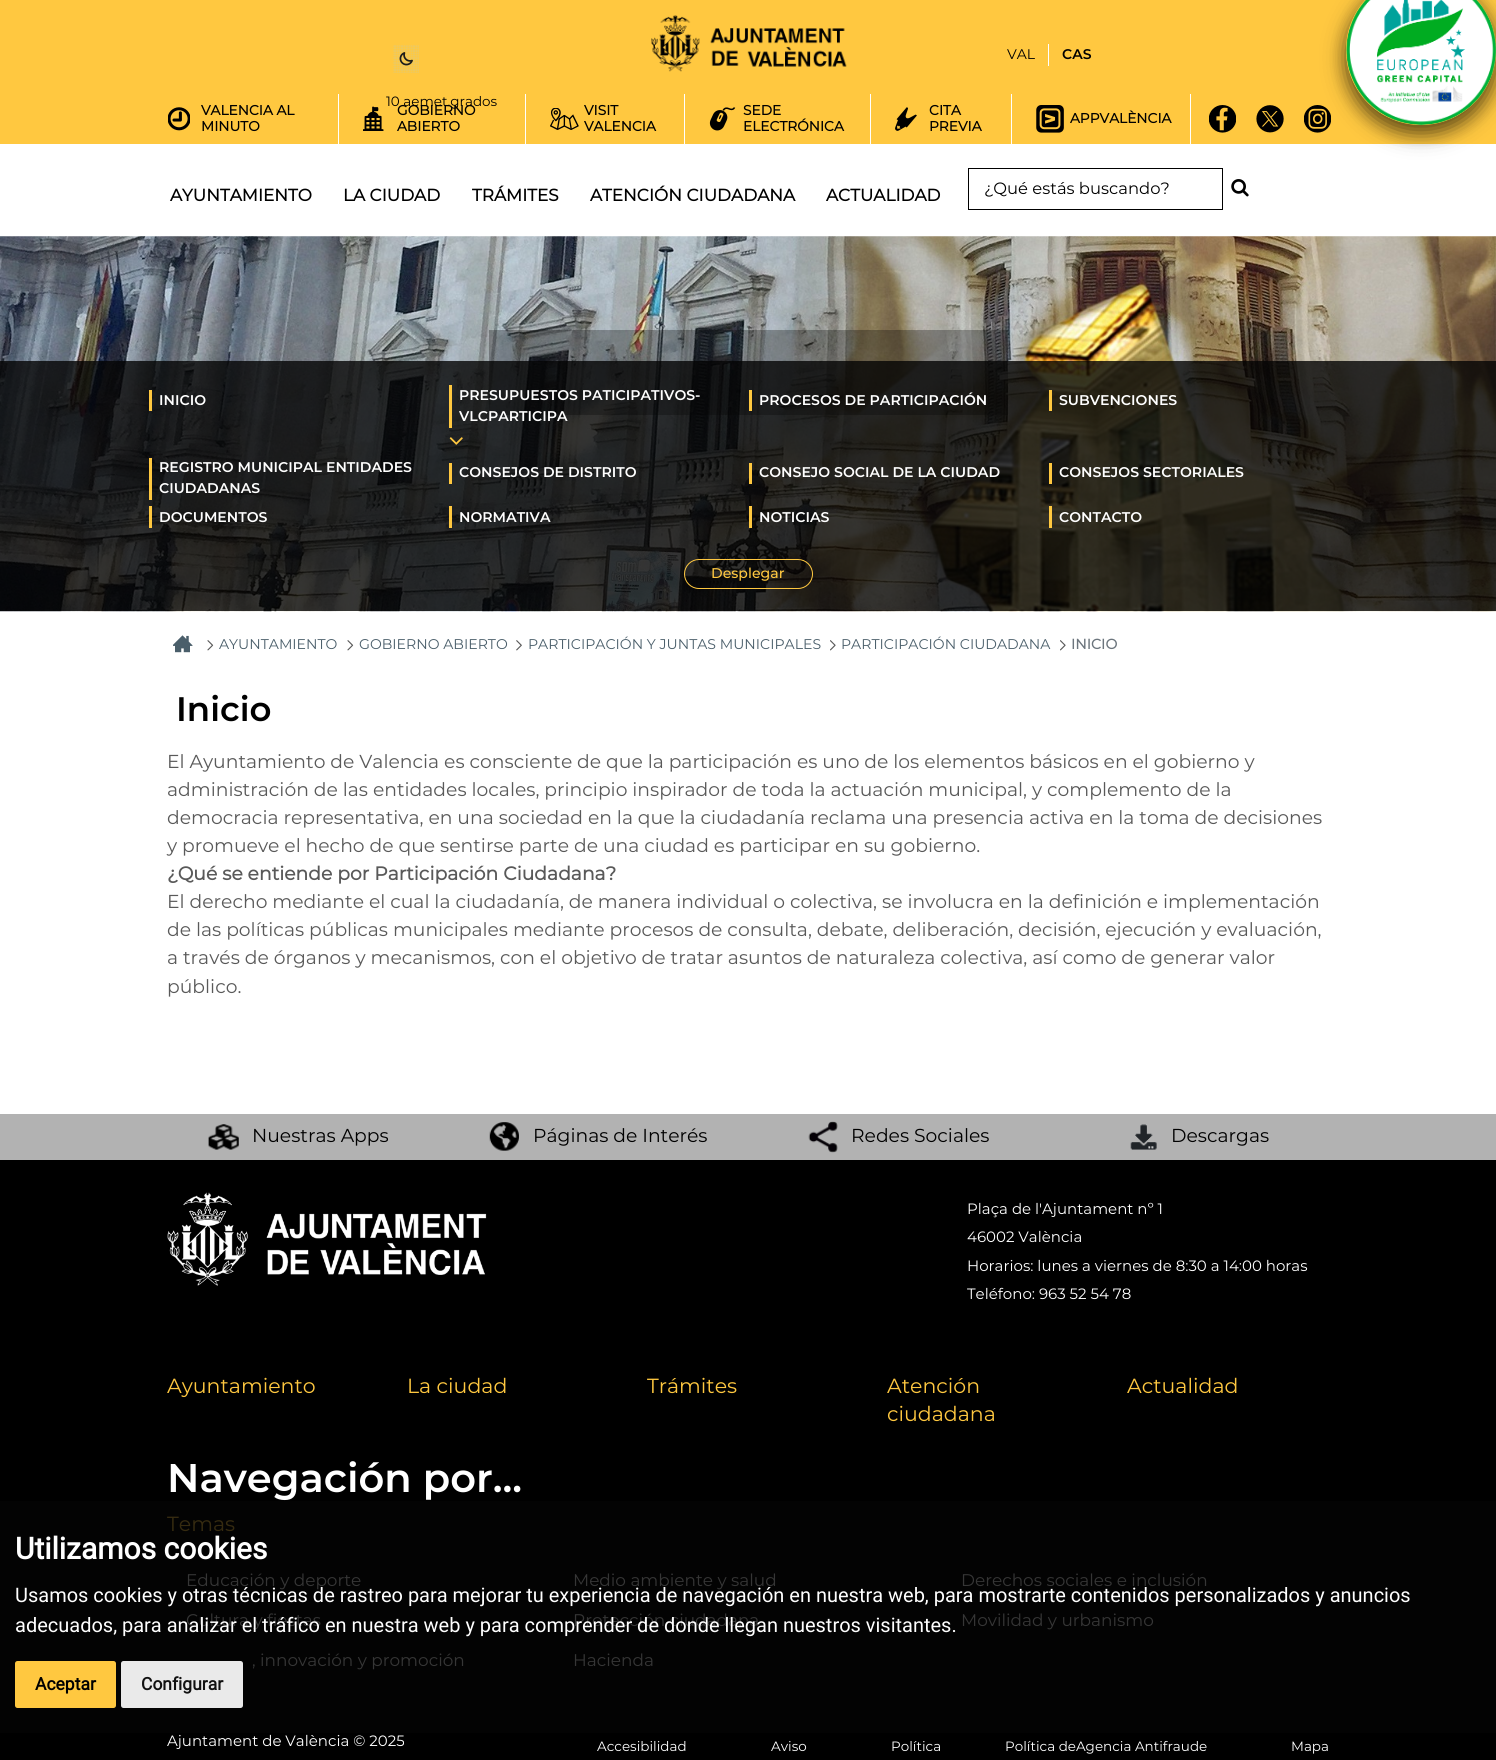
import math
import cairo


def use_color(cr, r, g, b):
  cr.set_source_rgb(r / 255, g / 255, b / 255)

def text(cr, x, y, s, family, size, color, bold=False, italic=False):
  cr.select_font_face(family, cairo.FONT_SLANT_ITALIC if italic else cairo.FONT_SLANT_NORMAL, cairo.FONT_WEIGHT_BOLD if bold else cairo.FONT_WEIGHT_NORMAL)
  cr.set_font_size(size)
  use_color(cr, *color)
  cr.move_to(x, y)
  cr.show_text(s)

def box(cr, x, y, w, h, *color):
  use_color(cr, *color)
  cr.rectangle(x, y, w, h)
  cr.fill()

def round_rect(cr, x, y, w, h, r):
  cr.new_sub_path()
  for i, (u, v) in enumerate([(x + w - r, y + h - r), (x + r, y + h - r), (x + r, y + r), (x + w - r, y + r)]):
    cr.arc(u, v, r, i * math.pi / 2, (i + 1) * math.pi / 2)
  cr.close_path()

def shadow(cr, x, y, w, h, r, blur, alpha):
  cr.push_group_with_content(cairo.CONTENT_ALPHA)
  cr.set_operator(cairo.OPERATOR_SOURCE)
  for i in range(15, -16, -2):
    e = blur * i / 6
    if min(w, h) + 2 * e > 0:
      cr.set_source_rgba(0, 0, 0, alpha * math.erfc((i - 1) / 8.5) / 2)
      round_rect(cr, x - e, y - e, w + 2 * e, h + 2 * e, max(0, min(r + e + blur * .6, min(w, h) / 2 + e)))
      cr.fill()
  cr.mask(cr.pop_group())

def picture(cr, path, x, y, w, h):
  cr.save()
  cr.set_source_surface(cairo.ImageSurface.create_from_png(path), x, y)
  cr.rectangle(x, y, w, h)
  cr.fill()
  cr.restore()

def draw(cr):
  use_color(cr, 255, 255, 255)
  cr.paint()
  box(cr, 0, 0, 1496, 144, 255, 200, 64)
  picture(cr, "img_01.png", 651, 15, 196, 57)
  box(cr, 1048, 44, 1, 22, 255, 255, 255)
  picture(cr, "img_02.png", 393, 45, 26, 28)
  box(cr, 338, 94, 1, 50, 255, 255, 255)
  picture(cr, "img_03.png", 168, 107, 22, 24)
  box(cr, 525, 94, 1, 50, 255, 255, 255)
  picture(cr, "img_04.png", 363, 106, 21, 25)
  box(cr, 684, 94, 1, 50, 255, 255, 255)
  picture(cr, "img_05.png", 550, 108, 29, 22)
  box(cr, 870, 94, 1, 50, 255, 255, 255)
  picture(cr, "img_06.png", 709, 107, 27, 24)
  box(cr, 1011, 94, 1, 50, 255, 255, 255)
  picture(cr, "img_07.png", 895, 107, 22, 24)
  box(cr, 1190, 94, 1, 50, 255, 255, 255)
  picture(cr, "img_08.png", 1036, 105, 28, 28)
  picture(cr, "img_09.png", 1209, 105, 27, 28)
  picture(cr, "img_10.png", 1256, 105, 28, 28)
  picture(cr, "img_11.png", 1304, 105, 27, 28)
  cr.save()
  cr.set_fill_rule(cairo.FILL_RULE_EVEN_ODD)
  cr.new_path()
  cr.move_to(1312, 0)
  cr.line_to(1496, 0)
  cr.line_to(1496, 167)
  cr.line_to(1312, 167)
  cr.close_path()
  cr.move_to(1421, -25)
  cr.curve_to(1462.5, -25, 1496, 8.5, 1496, 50)
  cr.curve_to(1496, 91.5, 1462.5, 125, 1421, 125)
  cr.curve_to(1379.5, 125, 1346, 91.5, 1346, 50)
  cr.curve_to(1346, 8.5, 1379.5, -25, 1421, -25)
  cr.close_path()
  cr.clip()
  use_color(cr, 0, 0, 0)
  shadow(cr, 1346, -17, 150, 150, 75, 11, 0.4)
  cr.restore()
  cr.save()
  cr.set_fill_rule(cairo.FILL_RULE_EVEN_ODD)
  cr.new_path()
  cr.move_to(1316, 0)
  cr.line_to(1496, 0)
  cr.line_to(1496, 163)
  cr.line_to(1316, 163)
  cr.close_path()
  cr.move_to(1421, -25)
  cr.curve_to(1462.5, -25, 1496, 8.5, 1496, 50)
  cr.curve_to(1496, 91.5, 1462.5, 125, 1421, 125)
  cr.curve_to(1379.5, 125, 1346, 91.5, 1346, 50)
  cr.curve_to(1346, 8.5, 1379.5, -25, 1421, -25)
  cr.close_path()
  cr.clip()
  use_color(cr, 0, 0, 0)
  shadow(cr, 1346, -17, 150, 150, 75, 9.5, 0.4)
  cr.restore()
  picture(cr, "img_12.png", 1346, 0, 150, 125)
  cr.rectangle(968.5, 168.5, 254, 41)
  use_color(cr, 0, 0, 0)
  cr.set_line_width(1)
  cr.stroke()
  picture(cr, "img_13.png", 1231, 179, 18, 18)
  picture(cr, "img_14.png", 0, 236, 1496, 376)
  cr.set_source_rgba(0.016, 0.016, 0.016, 0.3)
  cr.rectangle(489, 330, 519, 85)
  cr.fill()
  cr.set_source_rgba(0.016, 0.016, 0.016, 0.8)
  cr.rectangle(0, 361, 1496, 250)
  cr.fill()
  box(cr, 149, 390, 3, 21, 255, 200, 64)
  box(cr, 449, 385, 3, 43, 255, 200, 64)
  picture(cr, "img_15.png", 449, 437, 14, 8)
  box(cr, 749, 390, 3, 21, 255, 200, 64)
  box(cr, 1049, 390, 3, 21, 255, 200, 64)
  box(cr, 149, 458, 3, 42, 255, 200, 64)
  box(cr, 449, 463, 3, 21, 255, 200, 64)
  box(cr, 749, 463, 3, 21, 255, 200, 64)
  box(cr, 1049, 463, 3, 21, 255, 200, 64)
  box(cr, 149, 506, 3, 22, 255, 200, 64)
  box(cr, 449, 506, 3, 22, 255, 200, 64)
  box(cr, 749, 506, 3, 22, 255, 200, 64)
  box(cr, 1049, 506, 3, 22, 255, 200, 64)
  round_rect(cr, 684.5, 559.5, 128, 29, 14.5)
  cr.stroke()
  picture(cr, "img_16.png", 173, 635, 20, 18)
  picture(cr, "img_17.png", 207, 640, 7, 11)
  picture(cr, "img_17.png", 347, 640, 7, 11)
  picture(cr, "img_18.png", 516, 640, 6, 11)
  picture(cr, "img_19.png", 830, 640, 6, 11)
  picture(cr, "img_19.png", 1060, 640, 6, 11)
  box(cr, 0, 1114, 1496, 46, 178, 178, 178)
  picture(cr, "img_20.png", 208, 1124, 31, 26)
  picture(cr, "img_21.png", 489, 1122, 30, 29)
  picture(cr, "img_22.png", 808, 1121, 30, 32)
  picture(cr, "img_23.png", 1130, 1124, 27, 26)
  box(cr, 0, 1160, 1496, 600, 0, 0, 0)
  box(cr, 0, 1501, 1496, 232, 3, 3, 3)
  picture(cr, "img_24.png", 167, 1192, 320, 94)
  use_color(cr, 255, 200, 64)
  round_rect(cr, 15, 1661, 101, 47, 2.5)
  cr.fill()
  use_color(cr, 234, 234, 234)
  round_rect(cr, 121, 1661, 122, 47, 2.5)
  cr.fill()
  text(cr, 1007, 59, "VAL", "Montserrat", 14, (0, 0, 0))
  text(cr, 1062, 59, "CAS", "Montserrat SemiBold", 14, (0, 0, 0))
  text(cr, 386, 106, "10 aemet.grados", "Montserrat", 13.5, (0, 0, 0))
  text(cr, 201, 115, "VALENCIA AL", "Montserrat", 13.75, (0, 0, 0), bold=True)
  text(cr, 201, 131, "MINUTO", "Montserrat", 13.75, (0, 0, 0), bold=True)
  text(cr, 397, 115, "GOBIERNO", "Montserrat", 13.75, (0, 0, 0), bold=True)
  text(cr, 397, 131, "ABIERTO", "Montserrat", 13.75, (0, 0, 0), bold=True)
  text(cr, 584, 115, "VISIT", "Montserrat", 13.75, (0, 0, 0), bold=True)
  text(cr, 584, 131, "VALENCIA", "Montserrat", 13.75, (0, 0, 0), bold=True)
  text(cr, 743, 115, "SEDE", "Montserrat", 13.75, (0, 0, 0), bold=True)
  text(cr, 743, 131, "ELECTRÓNICA", "Montserrat", 13.75, (0, 0, 0), bold=True)
  text(cr, 929, 115, "CITA", "Montserrat", 13.75, (0, 0, 0), bold=True)
  text(cr, 929, 131, "PREVIA", "Montserrat", 13.75, (0, 0, 0), bold=True)
  text(cr, 1070, 123, "APPVALÈNCIA", "Montserrat", 13.75, (0, 0, 0), bold=True)
  text(cr, 170, 201, "AYUNTAMIENTO", "Montserrat", 16.9, (0, 0, 0), bold=True)
  text(cr, 343, 201, "LA CIUDAD", "Montserrat", 16.9, (0, 0, 0), bold=True)
  text(cr, 472, 201, "TRÁMITES", "Montserrat", 16.9, (0, 0, 0), bold=True)
  text(cr, 590, 201, "ATENCIÓN CIUDADANA", "Montserrat", 16.9, (0, 0, 0), bold=True)
  text(cr, 826, 201, "ACTUALIDAD", "Montserrat", 16.9, (0, 0, 0), bold=True)
  text(cr, 984, 194, "¿Qué estás buscando?", "Montserrat", 16.4, (0, 0, 0))
  text(cr, 159, 405, "INICIO", "Montserrat SemiBold", 14.1, (255, 255, 255))
  text(cr, 459, 400, "PRESUPUESTOS PATICIPATIVOS-", "Montserrat SemiBold", 14.1, (255, 255, 255))
  text(cr, 459, 421, "VLCPARTICIPA", "Montserrat SemiBold", 14.1, (255, 255, 255))
  text(cr, 759, 405, "PROCESOS DE PARTICIPACIÓN", "Montserrat SemiBold", 14.1, (255, 255, 255))
  text(cr, 1059, 405, "SUBVENCIONES", "Montserrat SemiBold", 14.1, (255, 255, 255))
  text(cr, 159, 472, "REGISTRO MUNICIPAL ENTIDADES", "Montserrat SemiBold", 14.1, (255, 255, 255))
  text(cr, 159, 493, "CIUDADANAS", "Montserrat SemiBold", 14.1, (255, 255, 255))
  text(cr, 459, 477, "CONSEJOS DE DISTRITO", "Montserrat SemiBold", 14.1, (255, 255, 255))
  text(cr, 759, 477, "CONSEJO SOCIAL DE LA CIUDAD", "Montserrat SemiBold", 14.1, (255, 255, 255))
  text(cr, 1059, 477, "CONSEJOS SECTORIALES", "Montserrat SemiBold", 14.1, (255, 255, 255))
  text(cr, 159, 522, "DOCUMENTOS", "Montserrat SemiBold", 14.1, (255, 255, 255))
  text(cr, 459, 522, "NORMATIVA", "Montserrat SemiBold", 14.1, (255, 255, 255))
  text(cr, 759, 522, "NOTICIAS", "Montserrat SemiBold", 14.1, (255, 255, 255))
  text(cr, 1059, 522, "CONTACTO", "Montserrat SemiBold", 14.1, (255, 255, 255))
  text(cr, 711, 578, "Desplegar", "Montserrat Medium", 14.1, (255, 200, 64))
  text(cr, 219, 649, "AYUNTAMIENTO", "Montserrat", 14.1, (74, 94, 106))
  text(cr, 359, 649, "GOBIERNO ABIERTO", "Montserrat", 14.1, (74, 94, 106))
  text(cr, 528, 649, "PARTICIPACIÓN Y JUNTAS MUNICIPALES", "Montserrat", 14.1, (74, 94, 106))
  text(cr, 841, 649, "PARTICIPACIÓN CIUDADANA", "Montserrat", 14.1, (74, 94, 106))
  text(cr, 1071, 649, "INICIO", "Montserrat", 14.1, (108, 117, 125), bold=True)
  text(cr, 176, 721, "Inicio", "Montserrat SemiBold", 34, (0, 0, 0))
  text(cr, 167, 768, "El Ayuntamiento de Valencia es consciente de que la participación es uno de los elementos básicos en el gobierno y", "Montserrat", 18.75, (89, 89, 89))
  text(cr, 167, 796, "administración de las entidades locales, principio inspirador de toda la actuación municipal, y complemento de la", "Montserrat", 18.75, (89, 89, 89))
  text(cr, 167, 824, "democracia representativa, en una sociedad en la que la ciudadanía reclama una presencia activa en la toma de decisiones", "Montserrat", 18.75, (89, 89, 89))
  text(cr, 167, 852, "y promueve el hecho de que sentirse parte de una ciudad es participar en su gobierno.", "Montserrat", 18.75, (89, 89, 89))
  text(cr, 167, 880, "¿Qué se entiende por Participación Ciudadana?", "Montserrat", 18.75, (89, 89, 89), bold=True)
  text(cr, 167, 908, "El derecho mediante el cual la ciudadanía, de manera individual o colectiva, se involucra en la definición e implementación", "Montserrat", 18.75, (89, 89, 89))
  text(cr, 167, 936, "de las políticas públicas municipales mediante procesos de consulta, debate, deliberación, decisión, ejecución y evaluación,", "Montserrat", 18.75, (89, 89, 89))
  text(cr, 167, 964, "a través de órganos y mecanismos, con el objetivo de tratar asuntos de naturaleza colectiva, así como de generar valor", "Montserrat", 18.75, (89, 89, 89))
  text(cr, 167, 993, "público.", "Montserrat", 18.75, (89, 89, 89))
  text(cr, 252, 1142, "Nuestras Apps", "Montserrat", 18.75, (0, 0, 0))
  text(cr, 533, 1142, "Páginas de Interés", "Montserrat", 18.75, (0, 0, 0))
  text(cr, 851, 1142, "Redes Sociales", "Montserrat", 18.75, (0, 0, 0))
  text(cr, 1171, 1142, "Descargas", "Montserrat", 18.75, (0, 0, 0))
  text(cr, 967, 1214, "Plaça de l'Ajuntament nº 1", "Montserrat", 15, (255, 255, 255))
  text(cr, 967, 1242, "46002 València", "Montserrat", 15, (255, 255, 255))
  text(cr, 967, 1271, "Horarios: lunes a viernes de 8:30 a 14:00 horas", "Montserrat", 15, (255, 255, 255))
  text(cr, 967, 1299, "Teléfono: 963 52 54 78", "Montserrat", 15, (255, 255, 255))
  text(cr, 167, 1393, "Ayuntamiento", "Montserrat", 20.5, (255, 200, 64))
  text(cr, 407, 1393, "La ciudad", "Montserrat", 20.5, (255, 200, 64))
  text(cr, 647, 1393, "Trámites", "Montserrat", 20.5, (255, 200, 64))
  text(cr, 887, 1393, "Atención", "Montserrat", 20.5, (255, 200, 64))
  text(cr, 887, 1421, "ciudadana", "Montserrat", 20.5, (255, 200, 64))
  text(cr, 1127, 1393, "Actualidad", "Montserrat", 20.5, (255, 200, 64))
  text(cr, 167, 1492, "Navegación por...", "Montserrat SemiBold", 40, (255, 255, 255))
  text(cr, 167, 1531, "Temas", "Montserrat", 20.5, (54, 43, 16))
  text(cr, 186, 1586, "Educación y deporte", "Montserrat", 16.9, (54, 54, 54))
  text(cr, 573, 1586, "Medio ambiente y salud", "Montserrat", 16.9, (54, 54, 54))
  text(cr, 961, 1586, "Derechos sociales e inclusión", "Montserrat", 16.9, (54, 54, 54))
  text(cr, 186, 1626, "Cultura y fiestas", "Montserrat", 16.9, (54, 54, 54))
  text(cr, 573, 1626, "Protección ciudadana", "Montserrat", 16.9, (54, 54, 54))
  text(cr, 961, 1626, "Movilidad y urbanismo", "Montserrat", 16.9, (54, 54, 54))
  text(cr, 252, 1666, ", innovación y promoción", "Montserrat", 16.9, (54, 54, 54))
  text(cr, 573, 1666, "Hacienda", "Montserrat", 16.9, (54, 54, 54))
  text(cr, 167, 1746, "Ajuntament de València © 2025", "Montserrat", 15, (255, 255, 255))
  text(cr, 597, 1751, "Accesibilidad", "Montserrat", 13.5, (255, 255, 255))
  text(cr, 771, 1751, "Aviso", "Montserrat", 13.5, (255, 255, 255))
  text(cr, 891, 1751, "Política", "Montserrat", 13.5, (255, 255, 255))
  text(cr, 1005, 1751, "Política deAgencia Antifraude", "Montserrat", 13.5, (255, 255, 255))
  text(cr, 1291, 1751, "Mapa", "Montserrat", 13.5, (255, 255, 255))
  text(cr, 15, 1559, "Utilizamos cookies", "Roboto", 30, (255, 255, 255), bold=True)
  text(cr, 15, 1602, "Usamos cookies y otras técnicas de rastreo para mejorar tu experiencia de navegación en nuestra web, para mostrarte contenidos personalizados y anuncios", "Roboto", 20, (255, 255, 255))
  text(cr, 15, 1632, "adecuados, para analizar el tráfico en nuestra web y para comprender de donde llegan nuestros visitantes.", "Roboto", 20, (255, 255, 255))
  text(cr, 35, 1690, "Aceptar", "Roboto", 17.5, (0, 0, 0), bold=True)
  text(cr, 141, 1690, "Configurar", "Roboto", 17.5, (17, 17, 17), bold=True)


surface = cairo.ImageSurface(cairo.FORMAT_RGB24, 1496, 1760)
cr = cairo.Context(surface)
options = cairo.FontOptions()
options.set_hint_metrics(cairo.HINT_METRICS_OFF)
options.set_hint_style(cairo.HINT_STYLE_NONE)
cr.set_font_options(options)
cr.set_miter_limit(4)
draw(cr)
surface.write_to_png("out.png")
